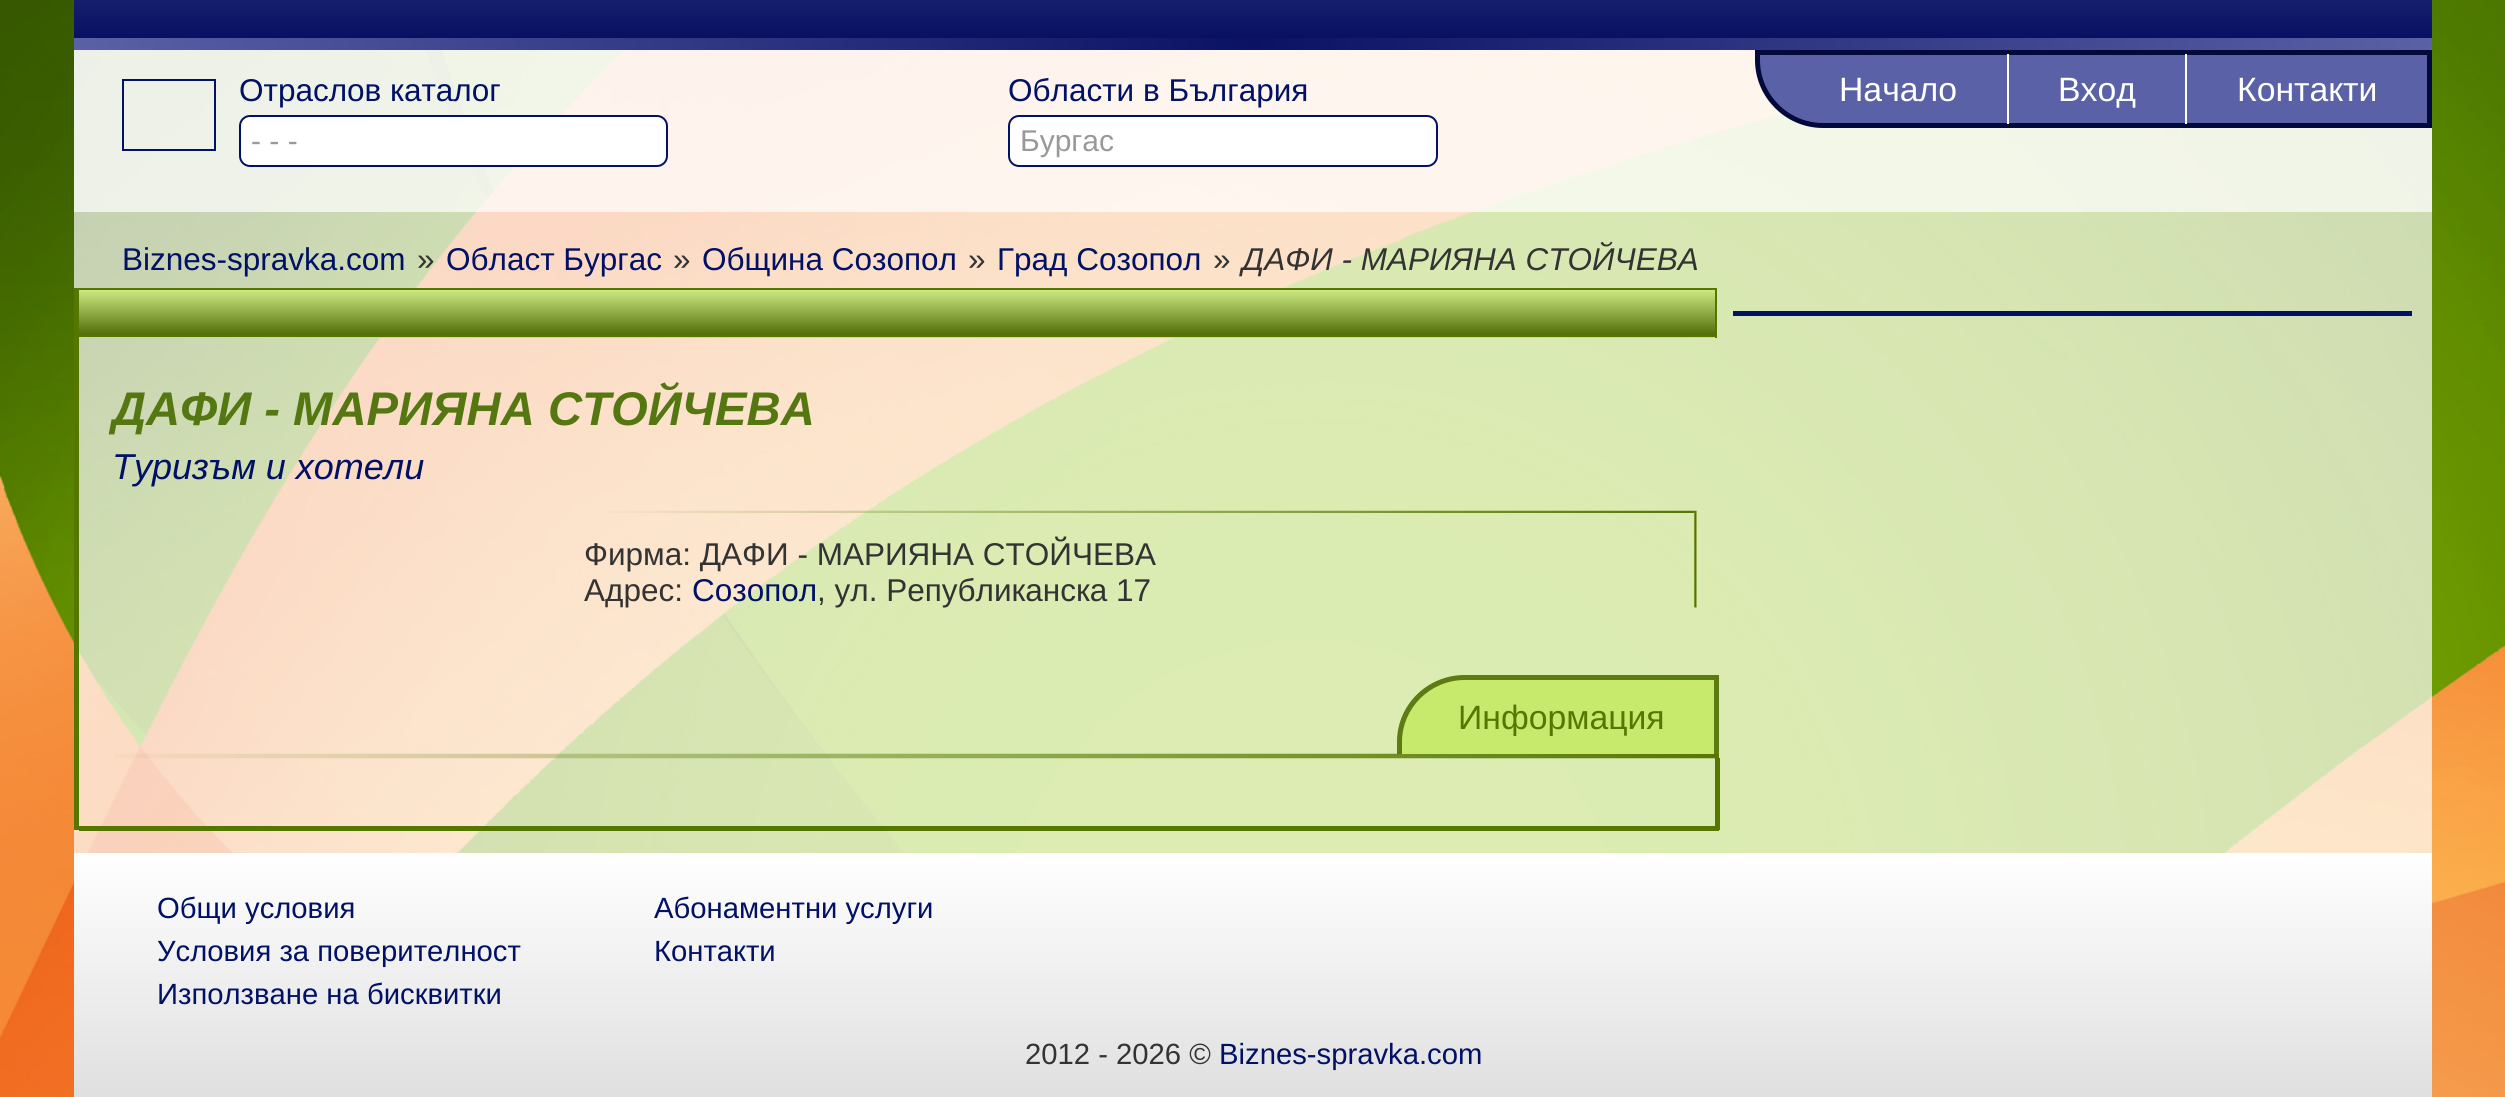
import math
import cairo


def use_color(cr, r, g, b):
  cr.set_source_rgb(r / 255, g / 255, b / 255)

def text(cr, x, y, s, family, size, color, bold=False, italic=False):
  cr.select_font_face(family, cairo.FONT_SLANT_ITALIC if italic else cairo.FONT_SLANT_NORMAL, cairo.FONT_WEIGHT_BOLD if bold else cairo.FONT_WEIGHT_NORMAL)
  cr.set_font_size(size)
  use_color(cr, *color)
  cr.move_to(x, y)
  cr.show_text(s)

def box(cr, x, y, w, h, *color):
  use_color(cr, *color)
  cr.rectangle(x, y, w, h)
  cr.fill()

def round_rect(cr, x, y, w, h, r):
  cr.new_sub_path()
  for i, (u, v) in enumerate([(x + w - r, y + h - r), (x + r, y + h - r), (x + r, y + r), (x + w - r, y + r)]):
    cr.arc(u, v, r, i * math.pi / 2, (i + 1) * math.pi / 2)
  cr.close_path()

def picture(cr, path, x, y, w, h):
  cr.save()
  cr.set_source_surface(cairo.ImageSurface.create_from_png(path), x, y)
  cr.rectangle(x, y, w, h)
  cr.fill()
  cr.restore()

def draw(cr):
  use_color(cr, 255, 255, 255)
  cr.paint()
  picture(cr, "img_01.png", 0, 0, 2505, 1097)
  gradient = cairo.LinearGradient(2432, -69, 74, -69)
  gradient.add_color_stop_rgba(0, 0.353, 0.38, 0.651, 1)
  gradient.add_color_stop_rgba(0.5, 0.043, 0.071, 0.392, 1)
  gradient.add_color_stop_rgba(1, 0.353, 0.38, 0.651, 1)
  cr.set_source(gradient)
  cr.rectangle(74, 38, 2358, 12)
  cr.fill()
  gradient = cairo.LinearGradient(1253, 38, 1253, -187)
  gradient.add_color_stop_rgba(0, 0.031, 0.063, 0.384, 1)
  gradient.add_color_stop_rgba(1, 0.349, 0.376, 0.647, 1)
  cr.set_source(gradient)
  cr.rectangle(74, 0, 2358, 38)
  cr.fill()
  cr.set_source_rgba(1, 1, 1, 0.7)
  cr.rectangle(74, 50, 2358, 162)
  cr.fill()
  cr.rectangle(123, 80, 92, 70)
  use_color(cr, 0, 17, 102)
  cr.stroke()
  use_color(cr, 255, 255, 255)
  round_rect(cr, 240, 116, 427, 50, 10)
  cr.fill_preserve()
  use_color(cr, 0, 17, 102)
  cr.stroke()
  use_color(cr, 255, 255, 255)
  round_rect(cr, 1009, 116, 428, 50, 10)
  cr.fill_preserve()
  use_color(cr, 0, 17, 102)
  cr.stroke()
  use_color(cr, 90, 97, 166)
  cr.new_path()
  cr.move_to(1757.5, 52.5)
  cr.line_to(2429.5, 52.5)
  cr.line_to(2429.5, 125.5)
  cr.line_to(1823, 125.5)
  cr.curve_to(1787, 125.5, 1757.5, 96, 1757.5, 60)
  cr.close_path()
  cr.fill_preserve()
  use_color(cr, 4, 9, 60)
  cr.set_line_width(5)
  cr.stroke()
  box(cr, 2007, 54, 2, 70, 255, 255, 255)
  box(cr, 2185, 54, 2, 70, 255, 255, 255)
  box(cr, 1733, 311, 679, 5, 0, 17, 102)
  box(cr, 74, 288, 5, 542, 85, 119, 0)
  gradient = cairo.LinearGradient(897, 335, 897, 290)
  gradient.add_color_stop_rgba(0, 0.318, 0.431, 0.031, 1)
  gradient.add_color_stop_rgba(1, 0.8, 0.914, 0.51, 1)
  cr.set_source(gradient)
  cr.rectangle(79, 290, 1636, 45)
  cr.fill()
  gradient = cairo.LinearGradient(897, 380, 897, 335)
  gradient.add_color_stop_rgba(0, 0.318, 0.431, 0.031, 1)
  gradient.add_color_stop_rgba(1, 0.8, 0.914, 0.51, 1)
  cr.set_source(gradient)
  cr.rectangle(79, 337, 1638, 1)
  cr.fill()
  box(cr, 79, 288, 1638, 2, 85, 119, 0)
  box(cr, 1715, 288, 2, 50, 85, 119, 0)
  box(cr, 79, 335, 1638, 2, 85, 119, 0)
  picture(cr, "img_02.png", 607, 510, 1090, 98)
  picture(cr, "img_03.png", 114, 753, 1605, 6)
  use_color(cr, 199, 233, 108)
  cr.new_path()
  cr.move_to(1465, 675)
  cr.line_to(1719, 675)
  cr.line_to(1719, 754)
  cr.line_to(1397, 754)
  cr.line_to(1397, 743)
  cr.curve_to(1397, 705.5, 1427.5, 675, 1465, 675)
  cr.close_path()
  cr.fill()
  use_color(cr, 93, 122, 19)
  cr.set_fill_rule(cairo.FILL_RULE_EVEN_ODD)
  cr.new_path()
  cr.move_to(1465, 675)
  cr.line_to(1719, 675)
  cr.line_to(1719, 754)
  cr.line_to(1397, 754)
  cr.line_to(1397, 742)
  cr.curve_to(1397, 705, 1427, 675, 1465, 675)
  cr.close_path()
  cr.move_to(1465, 680)
  cr.line_to(1714, 680)
  cr.line_to(1714, 754)
  cr.line_to(1402, 754)
  cr.line_to(1402, 742)
  cr.curve_to(1402, 708, 1430, 680, 1465, 680)
  cr.close_path()
  cr.fill()
  box(cr, 1715, 758, 5, 72, 85, 119, 0)
  box(cr, 79, 826, 1640, 5, 85, 119, 0)
  gradient = cairo.LinearGradient(1253, 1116, 1253, 853)
  gradient.add_color_stop_rgba(0, 0.867, 0.867, 0.867, 1)
  gradient.add_color_stop_rgba(1, 1, 1, 1, 1)
  cr.set_source(gradient)
  cr.rectangle(74, 853, 2358, 244)
  cr.fill()
  text(cr, 239, 101, "Отраслов каталог", "Liberation Sans", 31.5, (0, 17, 102))
  text(cr, 251, 151, "- - -", "Liberation Sans", 30, (153, 153, 153))
  text(cr, 1008, 101, "Области в България", "Liberation Sans", 31.5, (0, 17, 102))
  text(cr, 1020, 151, "Бургас", "Liberation Sans", 30, (153, 153, 153))
  text(cr, 1839, 101, "Начало", "Liberation Sans", 33.75, (255, 255, 255))
  text(cr, 2058, 101, "Вход", "Liberation Sans", 33.75, (255, 255, 255))
  text(cr, 2237, 101, "Контакти", "Liberation Sans", 33.75, (255, 255, 255))
  text(cr, 122, 270, "Biznes-spravka.com", "Liberation Sans", 31.5, (0, 17, 102))
  text(cr, 417, 270, "»", "Liberation Sans", 31.5, (51, 51, 51))
  text(cr, 446, 270, "Област Бургас", "Liberation Sans", 31.5, (0, 17, 102))
  text(cr, 673, 270, "»", "Liberation Sans", 31.5, (51, 51, 51))
  text(cr, 702, 270, "Община Созопол", "Liberation Sans", 31.5, (0, 17, 102))
  text(cr, 968, 270, "»", "Liberation Sans", 31.5, (51, 51, 51))
  text(cr, 997, 270, "Град Созопол", "Liberation Sans", 31.5, (0, 17, 102))
  text(cr, 1213, 270, "»", "Liberation Sans", 31.5, (51, 51, 51))
  text(cr, 1242, 270, "ДАФИ - МАРИЯНА СТОЙЧЕВА", "Liberation Sans", 31.5, (51, 51, 51), italic=True)
  text(cr, 112, 425, "ДАФИ - МАРИЯНА СТОЙЧЕВА", "Liberation Sans", 47.25, (85, 119, 17), bold=True, italic=True)
  text(cr, 112, 479, "Туризъм и хотели", "Liberation Sans", 36, (0, 17, 102), italic=True)
  text(cr, 584, 565, "Фирма: ДАФИ - МАРИЯНА СТОЙЧЕВА", "Liberation Sans", 31.5, (51, 51, 51))
  text(cr, 584, 601, "Адрес:", "Liberation Sans", 31.5, (51, 51, 51))
  text(cr, 692, 601, "Созопол", "Liberation Sans", 31.5, (0, 17, 102))
  text(cr, 817, 601, ", ул. Републиканска 17", "Liberation Sans", 31.5, (51, 51, 51))
  text(cr, 1458, 729, "Информация", "Liberation Sans", 33.75, (85, 119, 0))
  text(cr, 157, 918, "Общи условия", "Liberation Sans", 29.25, (0, 17, 102))
  text(cr, 157, 961, "Условия за поверителност", "Liberation Sans", 29.25, (0, 17, 102))
  text(cr, 157, 1004, "Използване на бисквитки", "Liberation Sans", 29.25, (0, 17, 102))
  text(cr, 654, 918, "Абонаментни услуги", "Liberation Sans", 29.25, (0, 17, 102))
  text(cr, 654, 961, "Контакти", "Liberation Sans", 29.25, (0, 17, 102))
  text(cr, 1025, 1064, "2012 - 2026 ©", "Liberation Sans", 29.25, (51, 51, 51))
  text(cr, 1219, 1064, "Biznes-spravka.com", "Liberation Sans", 29.25, (0, 17, 102))


surface = cairo.ImageSurface(cairo.FORMAT_RGB24, 2505, 1097)
cr = cairo.Context(surface)
options = cairo.FontOptions()
options.set_hint_metrics(cairo.HINT_METRICS_OFF)
options.set_hint_style(cairo.HINT_STYLE_NONE)
cr.set_font_options(options)
cr.set_miter_limit(4)
draw(cr)
surface.write_to_png("out.png")
